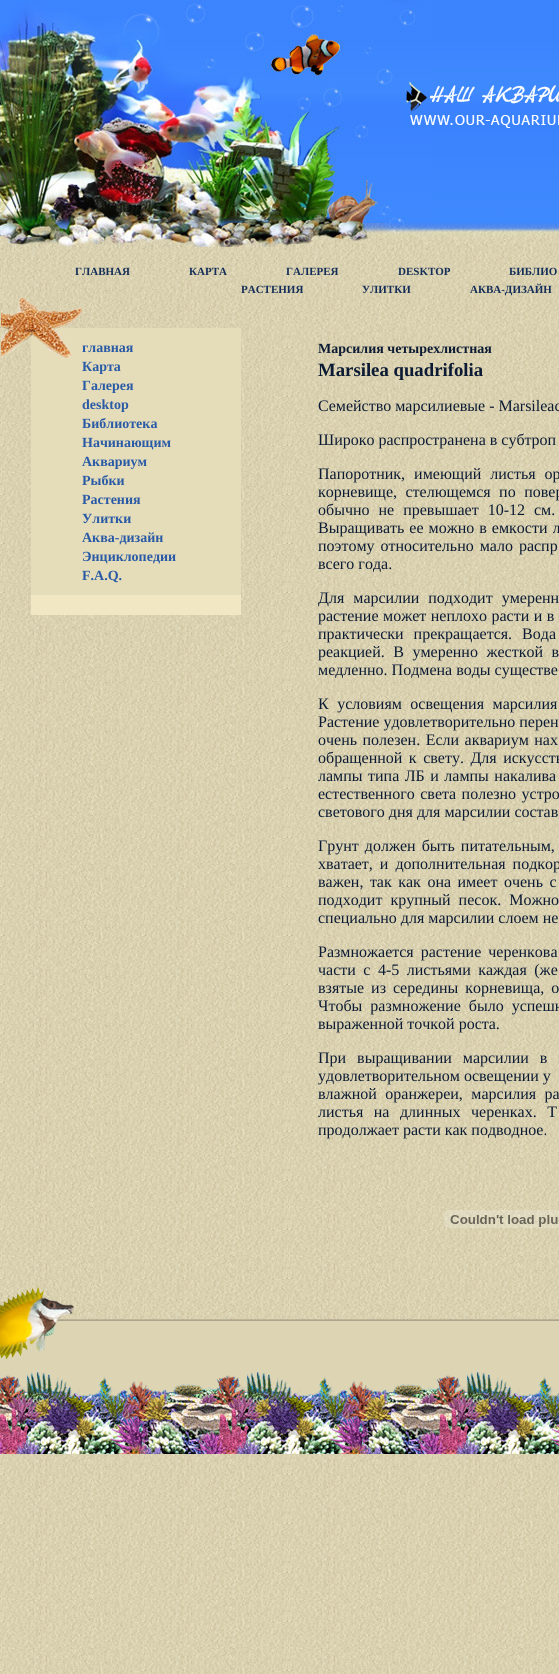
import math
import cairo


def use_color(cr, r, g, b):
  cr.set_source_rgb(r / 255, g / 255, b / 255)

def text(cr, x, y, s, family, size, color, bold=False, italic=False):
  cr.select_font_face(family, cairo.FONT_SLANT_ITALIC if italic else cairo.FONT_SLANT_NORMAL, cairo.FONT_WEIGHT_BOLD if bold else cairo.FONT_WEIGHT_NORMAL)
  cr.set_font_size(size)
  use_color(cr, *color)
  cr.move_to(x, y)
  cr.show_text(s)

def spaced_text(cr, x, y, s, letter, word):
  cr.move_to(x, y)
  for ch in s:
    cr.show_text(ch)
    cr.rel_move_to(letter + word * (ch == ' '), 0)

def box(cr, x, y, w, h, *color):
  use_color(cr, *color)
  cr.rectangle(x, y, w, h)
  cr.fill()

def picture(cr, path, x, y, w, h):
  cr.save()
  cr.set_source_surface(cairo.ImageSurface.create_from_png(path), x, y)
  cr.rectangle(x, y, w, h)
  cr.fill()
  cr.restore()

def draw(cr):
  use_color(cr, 255, 255, 255)
  cr.paint()
  picture(cr, "img_01.png", 0, 246, 559, 1428)
  picture(cr, "img_02.png", 431, 0, 128, 246)
  picture(cr, "img_03.png", 0, 0, 431, 262)
  picture(cr, "img_04.png", 405, 81, 154, 47)
  picture(cr, "img_05.png", 0, 298, 82, 64)
  box(cr, 31, 328, 210, 267, 229, 220, 185)
  picture(cr, "img_06.png", 31, 328, 41, 30)
  box(cr, 31, 595, 210, 20, 241, 232, 195)
  picture(cr, "img_07.png", 444, 1210, 115, 18)
  picture(cr, "img_08.png", 0, 1287, 75, 32)
  picture(cr, "img_09.png", 0, 1319, 559, 135)
  picture(cr, "img_10.png", 0, 1319, 63, 41)
  text(cr, 75, 275, "ГЛАВНАЯ", "Liberation Serif", 11, (21, 46, 87), bold=True)
  text(cr, 189, 275, "КАРТА", "Liberation Serif", 11, (21, 46, 87), bold=True)
  text(cr, 286, 275, "ГАЛЕРЕЯ", "Liberation Serif", 11, (21, 46, 87), bold=True)
  text(cr, 398, 275, "DESKTOP", "Liberation Serif", 11, (21, 46, 87), bold=True)
  text(cr, 509, 275, "БИБЛИО", "Liberation Serif", 11, (21, 46, 87), bold=True)
  text(cr, 241, 293, "РАСТЕНИЯ", "Liberation Serif", 11, (21, 46, 87), bold=True)
  text(cr, 362, 293, "УЛИТКИ", "Liberation Serif", 11, (21, 46, 87), bold=True)
  text(cr, 470, 293, "АКВА-ДИЗАЙН", "Liberation Serif", 11, (21, 46, 87), bold=True)
  text(cr, 82, 352, "главная", "Liberation Serif", 14, (41, 90, 166), bold=True)
  text(cr, 82, 371, "Карта", "Liberation Serif", 14, (41, 90, 166), bold=True)
  text(cr, 82, 390, "Галерея", "Liberation Serif", 14, (41, 90, 166), bold=True)
  text(cr, 82, 409, "desktop", "Liberation Serif", 14, (41, 90, 166), bold=True)
  text(cr, 82, 428, "Библиотека", "Liberation Serif", 14, (41, 90, 166), bold=True)
  text(cr, 82, 447, "Начинающим", "Liberation Serif", 14, (41, 90, 166), bold=True)
  text(cr, 82, 466, "Аквариум", "Liberation Serif", 14, (41, 90, 166), bold=True)
  text(cr, 82, 485, "Рыбки", "Liberation Serif", 14, (41, 90, 166), bold=True)
  text(cr, 82, 504, "Растения", "Liberation Serif", 14, (41, 90, 166), bold=True)
  text(cr, 82, 523, "Улитки", "Liberation Serif", 14, (41, 90, 166), bold=True)
  text(cr, 82, 542, "Аква-дизайн", "Liberation Serif", 14, (41, 90, 166), bold=True)
  text(cr, 82, 561, "Энциклопедии", "Liberation Serif", 14, (41, 90, 166), bold=True)
  text(cr, 82, 580, "F.A.Q.", "Liberation Serif", 14, (41, 90, 166), bold=True)
  text(cr, 318, 353, "Марсилия четырехлистная", "Liberation Serif", 14, (12, 27, 51), bold=True)
  text(cr, 318, 376, "Marsilea quadrifolia", "Liberation Serif", 18.75, (12, 27, 51), bold=True)
  text(cr, 318, 411, "Семейство марсилиевые - Marsileac", "Liberation Serif", 16, (12, 27, 51))
  text(cr, 318, 445, "Широко распространена в субтроп", "Liberation Serif", 16, (12, 27, 51))
  spaced_text(cr, 318, 479, "Папоротник, имеющий листья ор", 0, 5)
  spaced_text(cr, 318, 497, "корневище, стелющемся по повер", 0, 4.5)
  spaced_text(cr, 318, 515, "обычно не превышает 10-12 см.", 0, 5)
  spaced_text(cr, 318, 533, "Выращивать ее можно в емкости л", 0, 1)
  spaced_text(cr, 318, 551, "поэтому относительно мало распр", 0, 2)
  text(cr, 318, 569, "всего года.", "Liberation Serif", 16, (12, 27, 51))
  spaced_text(cr, 318, 603, "Для марсилии подходит умеренн", 0, 5)
  spaced_text(cr, 318, 621, "растение может неплохо расти и в", 0, 0.5)
  spaced_text(cr, 318, 639, "практически прекращается. Вода", 0, 6)
  spaced_text(cr, 318, 657, "реакцией. В умеренно жесткой в", 0, 4.5)
  text(cr, 318, 675, "медленно. Подмена воды существе", "Liberation Serif", 16, (12, 27, 51))
  spaced_text(cr, 318, 709, "К условиям освещения марсилия", 0, 4.5)
  text(cr, 318, 727, "Растение удовлетворительно перен", "Liberation Serif", 16, (12, 27, 51))
  spaced_text(cr, 318, 745, "очень полезен. Если аквариум нах", 0, 1.5)
  spaced_text(cr, 318, 763, "обращенной к свету. Для искусств", 0, 2.5)
  spaced_text(cr, 318, 781, "лампы типа ЛБ и лампы накалива", 0, 1.5)
  spaced_text(cr, 318, 799, "естественного света полезно устро", 0, 1.5)
  text(cr, 318, 817, "светового дня для марсилии состав", "Liberation Serif", 16, (12, 27, 51))
  spaced_text(cr, 318, 851, "Грунт должен быть питательным,", 0, 2)
  spaced_text(cr, 318, 869, "хватает, и дополнительная подкор", 0, 3)
  spaced_text(cr, 318, 887, "важен, так как она имеет очень с", 0, 2.5)
  spaced_text(cr, 318, 905, "подходит крупный песок. Можно", 0, 4)
  text(cr, 318, 923, "специально для марсилии слоем не", "Liberation Serif", 16, (12, 27, 51))
  spaced_text(cr, 318, 957, "Размножается растение черенкова", 0, 3)
  spaced_text(cr, 318, 975, "части с 4-5 листьями каждая (же", 0, 3.5)
  spaced_text(cr, 318, 993, "взятые из середины корневища, о", 0, 3)
  spaced_text(cr, 318, 1011, "Чтобы размножение было успешн", 0, 4)
  text(cr, 318, 1029, "выраженной точкой роста.", "Liberation Serif", 16, (12, 27, 51))
  spaced_text(cr, 318, 1063, "При выращивании марсилии в", 0, 7)
  text(cr, 318, 1081, "удовлетворительном освещении у", "Liberation Serif", 16, (12, 27, 51))
  spaced_text(cr, 318, 1099, "влажной оранжереи, марсилия ра", 0, 4.5)
  spaced_text(cr, 318, 1117, "листья на длинных черенках. Т", 0, 6.5)
  text(cr, 318, 1135, "продолжает расти как подводное.", "Liberation Serif", 16, (12, 27, 51))


surface = cairo.ImageSurface(cairo.FORMAT_RGB24, 559, 1674)
cr = cairo.Context(surface)
options = cairo.FontOptions()
options.set_hint_metrics(cairo.HINT_METRICS_OFF)
options.set_hint_style(cairo.HINT_STYLE_NONE)
cr.set_font_options(options)
cr.set_miter_limit(4)
draw(cr)
surface.write_to_png("out.png")
